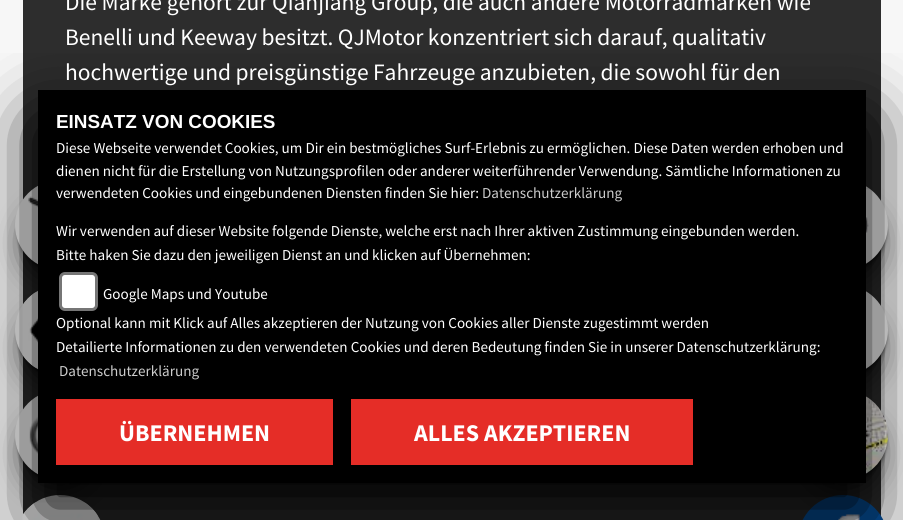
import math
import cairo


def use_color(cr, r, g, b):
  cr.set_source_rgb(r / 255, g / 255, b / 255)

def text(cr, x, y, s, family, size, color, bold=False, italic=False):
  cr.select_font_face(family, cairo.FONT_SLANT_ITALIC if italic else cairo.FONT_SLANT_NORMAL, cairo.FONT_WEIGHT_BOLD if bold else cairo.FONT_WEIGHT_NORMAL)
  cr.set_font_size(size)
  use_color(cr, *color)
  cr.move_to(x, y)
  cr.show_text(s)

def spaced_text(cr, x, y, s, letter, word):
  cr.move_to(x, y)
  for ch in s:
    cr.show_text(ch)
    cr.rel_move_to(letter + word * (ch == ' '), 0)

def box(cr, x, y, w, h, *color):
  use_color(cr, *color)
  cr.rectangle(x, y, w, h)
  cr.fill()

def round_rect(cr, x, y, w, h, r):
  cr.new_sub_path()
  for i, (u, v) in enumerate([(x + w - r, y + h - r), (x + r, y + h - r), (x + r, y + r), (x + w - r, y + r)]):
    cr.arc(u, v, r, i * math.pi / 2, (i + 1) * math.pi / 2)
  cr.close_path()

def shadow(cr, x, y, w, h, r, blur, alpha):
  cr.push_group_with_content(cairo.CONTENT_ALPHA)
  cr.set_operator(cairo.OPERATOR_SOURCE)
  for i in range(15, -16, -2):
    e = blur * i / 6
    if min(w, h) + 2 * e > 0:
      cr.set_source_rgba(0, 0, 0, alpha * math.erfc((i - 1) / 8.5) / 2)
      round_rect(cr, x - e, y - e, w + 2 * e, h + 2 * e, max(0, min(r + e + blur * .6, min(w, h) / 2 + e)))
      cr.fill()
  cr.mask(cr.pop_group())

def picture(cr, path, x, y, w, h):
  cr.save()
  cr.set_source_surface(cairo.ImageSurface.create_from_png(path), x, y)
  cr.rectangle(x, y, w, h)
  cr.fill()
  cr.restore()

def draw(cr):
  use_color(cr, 247, 247, 247)
  cr.paint()
  box(cr, 23, 0, 858, 520, 45, 45, 45)
  use_color(cr, 0, 0, 0)
  shadow(cr, 30, 213, 60, 60, 30, 15, 1)
  shadow(cr, 17, 186, 87, 87, 43.5, 1.5, 0.5)
  use_color(cr, 247, 247, 247)
  cr.arc(60, 225, 45, 0, 2 * math.pi)
  cr.fill()
  picture(cr, "img_01.png", 28, 196, 10, 12)
  use_color(cr, 0, 0, 0)
  shadow(cr, 30, 318, 60, 60, 30, 15, 1)
  shadow(cr, 17, 291, 87, 87, 43.5, 1.5, 0.5)
  use_color(cr, 247, 247, 247)
  cr.arc(60, 330, 45, 0, 2 * math.pi)
  cr.fill()
  picture(cr, "img_02.png", 22, 292, 16, 76)
  use_color(cr, 0, 0, 0)
  shadow(cr, 30, 423, 60, 60, 30, 15, 1)
  shadow(cr, 17, 396, 87, 87, 43.5, 1.5, 0.5)
  use_color(cr, 247, 247, 247)
  cr.arc(60, 435, 45, 0, 2 * math.pi)
  cr.fill()
  picture(cr, "img_03.png", 29, 415, 9, 39)
  round_rect(cr, 15, 495, 90, 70, 45)
  cr.fill()
  picture(cr, "img_04.png", 22, 502, 76, 18)
  use_color(cr, 0, 0, 0)
  shadow(cr, 813, 213, 60, 60, 30, 15, 1)
  shadow(cr, 800, 186, 87, 87, 43.5, 1.5, 0.5)
  use_color(cr, 247, 247, 247)
  cr.arc(843, 225, 45, 0, 2 * math.pi)
  cr.fill()
  picture(cr, "img_05.png", 866, 187, 4, 46)
  use_color(cr, 0, 0, 0)
  shadow(cr, 813, 318, 60, 60, 30, 15, 1)
  shadow(cr, 800, 291, 87, 87, 43.5, 1.5, 0.5)
  use_color(cr, 247, 247, 247)
  cr.arc(843, 330, 45, 0, 2 * math.pi)
  cr.fill()
  use_color(cr, 0, 0, 0)
  shadow(cr, 813, 423, 60, 60, 30, 15, 1)
  shadow(cr, 800, 396, 87, 87, 43.5, 1.5, 0.5)
  picture(cr, "img_06.png", 866, 396, 22, 78)
  use_color(cr, 5, 82, 160)
  round_rect(cr, 798, 495, 90, 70, 45)
  cr.fill()
  picture(cr, "img_07.png", 838, 514, 22, 6)
  cr.save()
  cr.rectangle(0, 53, 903, 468)
  cr.clip()
  use_color(cr, 0, 0, 0)
  shadow(cr, 38, 123, 828, 393, 0, 37.5, 1)
  cr.restore()
  box(cr, 38, 90, 828, 393, 0, 0, 0)
  use_color(cr, 255, 255, 255)
  round_rect(cr, 60.5, 273.5, 36, 36, 4.5)
  cr.fill_preserve()
  use_color(cr, 118, 118, 118)
  cr.set_line_width(3)
  cr.stroke()
  box(cr, 56, 399, 277, 66, 229, 45, 39)
  box(cr, 351, 399, 342, 66, 229, 45, 39)
  text(cr, 65, 10, "Die Marke gehört zur Qianjiang Group, die auch andere Motorradmarken wie", "Source Sans Pro", 23.5, (255, 255, 255))
  spaced_text(cr, 65, 45, "Benelli und Keeway besitzt. QJMotor konzentriert sich darauf, qualitativ", 0, -0.25)
  spaced_text(cr, 65, 80, "hochwertige und preisgünstige Fahrzeuge anzubieten, die sowohl für den", 0, -0.25)
  text(cr, 56, 128, "EINSATZ VON COOKIES", "Liberation Sans", 18.9, (255, 255, 255), bold=True)
  text(cr, 56, 153, "Diese Webseite verwendet Cookies, um Dir ein bestmögliches Surf-Erlebnis zu ermöglichen. Diese Daten werden erhoben und", "Source Sans Pro", 15.12, (255, 255, 255))
  text(cr, 56, 176, "dienen nicht für die Erstellung von Nutzungsprofilen oder anderer weiterführender Verwendung. Sämtliche Informationen zu", "Source Sans Pro", 15.12, (255, 255, 255))
  text(cr, 56, 198, "verwendeten Cookies und eingebundenen Diensten finden Sie hier:", "Source Sans Pro", 15.12, (255, 255, 255))
  text(cr, 482, 198, "Datenschutzerklärung", "Source Sans Pro", 15.12, (204, 204, 204))
  text(cr, 56, 236, "Wir verwenden auf dieser Website folgende Dienste, welche erst nach Ihrer aktiven Zustimmung eingebunden werden.", "Source Sans Pro", 15.12, (255, 255, 255))
  text(cr, 56, 260, "Bitte haken Sie dazu den jeweiligen Dienst an und klicken auf Übernehmen:", "Source Sans Pro", 15.12, (255, 255, 255))
  text(cr, 103, 299, "Google Maps und Youtube", "Source Sans Pro", 15.12, (255, 255, 255))
  text(cr, 56, 328, "Optional kann mit Klick auf Alles akzeptieren der Nutzung von Cookies aller Dienste zugestimmt werden", "Source Sans Pro", 15.12, (255, 255, 255))
  text(cr, 56, 352, "Detailierte Informationen zu den verwendeten Cookies und deren Bedeutung finden Sie in unserer Datenschutzerklärung:", "Source Sans Pro", 15.12, (255, 255, 255))
  text(cr, 59, 376, "Datenschutzerklärung", "Source Sans Pro", 15.12, (204, 204, 204))
  text(cr, 119, 441, "ÜBERNEHMEN", "Source Sans Pro", 24, (255, 255, 255), bold=True)
  text(cr, 414, 441, "ALLES AKZEPTIEREN", "Source Sans Pro", 24, (255, 255, 255), bold=True)


surface = cairo.ImageSurface(cairo.FORMAT_RGB24, 903, 520)
cr = cairo.Context(surface)
options = cairo.FontOptions()
options.set_hint_metrics(cairo.HINT_METRICS_OFF)
options.set_hint_style(cairo.HINT_STYLE_NONE)
cr.set_font_options(options)
cr.set_miter_limit(4)
draw(cr)
surface.write_to_png("out.png")
